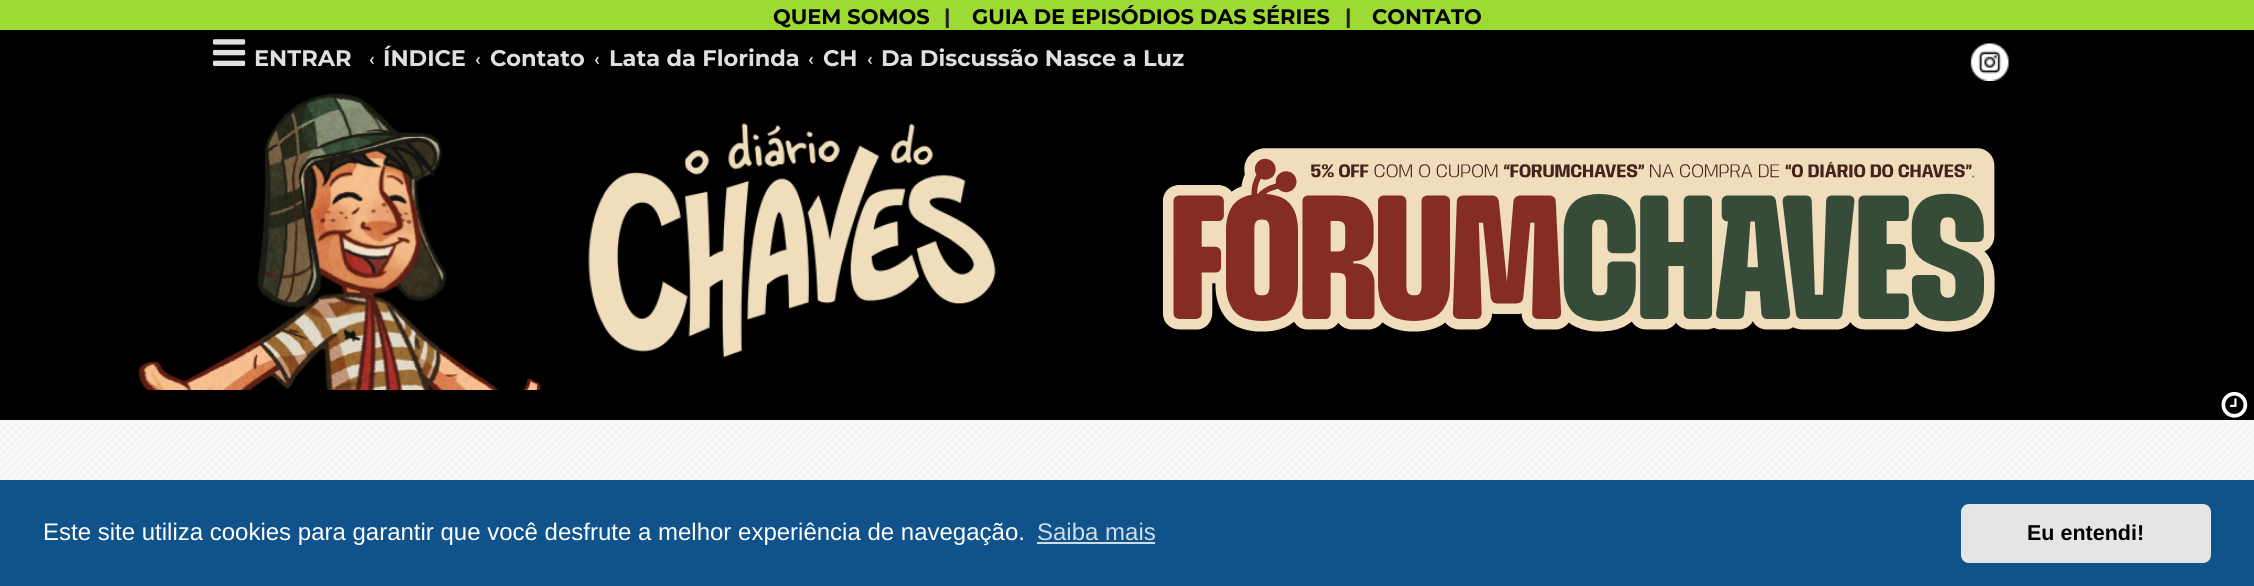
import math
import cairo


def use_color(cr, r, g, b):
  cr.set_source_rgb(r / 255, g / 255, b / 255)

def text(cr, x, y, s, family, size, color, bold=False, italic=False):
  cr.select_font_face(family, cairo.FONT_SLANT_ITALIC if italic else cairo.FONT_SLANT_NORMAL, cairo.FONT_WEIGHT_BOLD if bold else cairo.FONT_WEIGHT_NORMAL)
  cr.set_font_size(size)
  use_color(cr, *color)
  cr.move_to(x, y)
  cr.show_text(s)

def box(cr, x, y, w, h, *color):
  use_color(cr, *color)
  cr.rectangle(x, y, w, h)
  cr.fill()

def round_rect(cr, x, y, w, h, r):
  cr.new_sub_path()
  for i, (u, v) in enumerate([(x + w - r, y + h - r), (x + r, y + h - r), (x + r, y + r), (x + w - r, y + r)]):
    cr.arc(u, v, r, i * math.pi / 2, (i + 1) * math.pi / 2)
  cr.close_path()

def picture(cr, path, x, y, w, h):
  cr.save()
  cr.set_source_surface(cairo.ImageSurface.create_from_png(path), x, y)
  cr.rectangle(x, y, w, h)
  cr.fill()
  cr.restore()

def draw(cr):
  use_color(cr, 255, 255, 255)
  cr.paint()
  picture(cr, "img_01.png", 0, 420, 2254, 60)
  box(cr, 0, 0, 2254, 30, 157, 218, 51)
  box(cr, 0, 30, 2254, 390, 0, 0, 0)
  picture(cr, "img_02.png", 138, 93, 404, 297)
  picture(cr, "img_03.png", 588, 123, 408, 235)
  picture(cr, "img_04.png", 1162, 148, 833, 184)
  picture(cr, "img_05.png", 2221, 391, 27, 27)
  picture(cr, "img_06.png", 213, 39, 33, 27)
  picture(cr, "img_07.png", 1970, 43, 39, 38)
  box(cr, 0, 480, 2254, 106, 15, 83, 138)
  box(cr, 1037, 542, 118, 2, 207, 221, 232)
  use_color(cr, 229, 229, 229)
  round_rect(cr, 1961, 504, 250, 59, 8)
  cr.fill()
  text(cr, 773, 24, "QUEM SOMOS", "Montserrat", 21, (0, 0, 0), bold=True)
  text(cr, 944, 24, "|", "Montserrat", 21, (32, 32, 32), bold=True)
  text(cr, 972, 24, "GUIA DE EPISÓDIOS DAS SÉRIES", "Montserrat", 21, (0, 0, 0), bold=True)
  text(cr, 1345, 24, "|", "Montserrat", 21, (32, 32, 32), bold=True)
  text(cr, 1372, 24, "CONTATO", "Montserrat", 21, (0, 0, 0), bold=True)
  text(cr, 254, 66, "ENTRAR", "Montserrat", 22.5, (224, 224, 224), bold=True)
  text(cr, 369, 65, "‹", "Roboto", 18, (224, 224, 224), bold=True)
  text(cr, 383, 66, "ÍNDICE", "Montserrat", 22.5, (224, 224, 224), bold=True)
  text(cr, 475, 65, "‹", "Roboto", 18, (224, 224, 224), bold=True)
  text(cr, 490, 66, "Contato", "Montserrat", 22.5, (224, 224, 224), bold=True)
  text(cr, 594, 65, "‹", "Roboto", 18, (224, 224, 224), bold=True)
  text(cr, 609, 66, "Lata da Florinda", "Montserrat", 22.5, (224, 224, 224), bold=True)
  text(cr, 808, 65, "‹", "Roboto", 18, (224, 224, 224), bold=True)
  text(cr, 823, 66, "CH", "Montserrat", 22.5, (224, 224, 224), bold=True)
  text(cr, 867, 65, "‹", "Roboto", 18, (224, 224, 224), bold=True)
  text(cr, 881, 66, "Da Discussão Nasce a Luz", "Montserrat", 22.5, (224, 224, 224), bold=True)
  text(cr, 43, 540, "Este site utiliza cookies para garantir que você desfrute a melhor experiência de navegação.", "Liberation Sans", 24, (255, 255, 255))
  text(cr, 1037, 540, "Saiba mais", "Liberation Sans", 24, (207, 221, 232))
  text(cr, 2027, 540, "Eu entendi!", "Liberation Sans", 21.5, (0, 0, 0), bold=True)


surface = cairo.ImageSurface(cairo.FORMAT_RGB24, 2254, 586)
cr = cairo.Context(surface)
options = cairo.FontOptions()
options.set_hint_metrics(cairo.HINT_METRICS_OFF)
options.set_hint_style(cairo.HINT_STYLE_NONE)
cr.set_font_options(options)
cr.set_miter_limit(4)
draw(cr)
surface.write_to_png("out.png")
